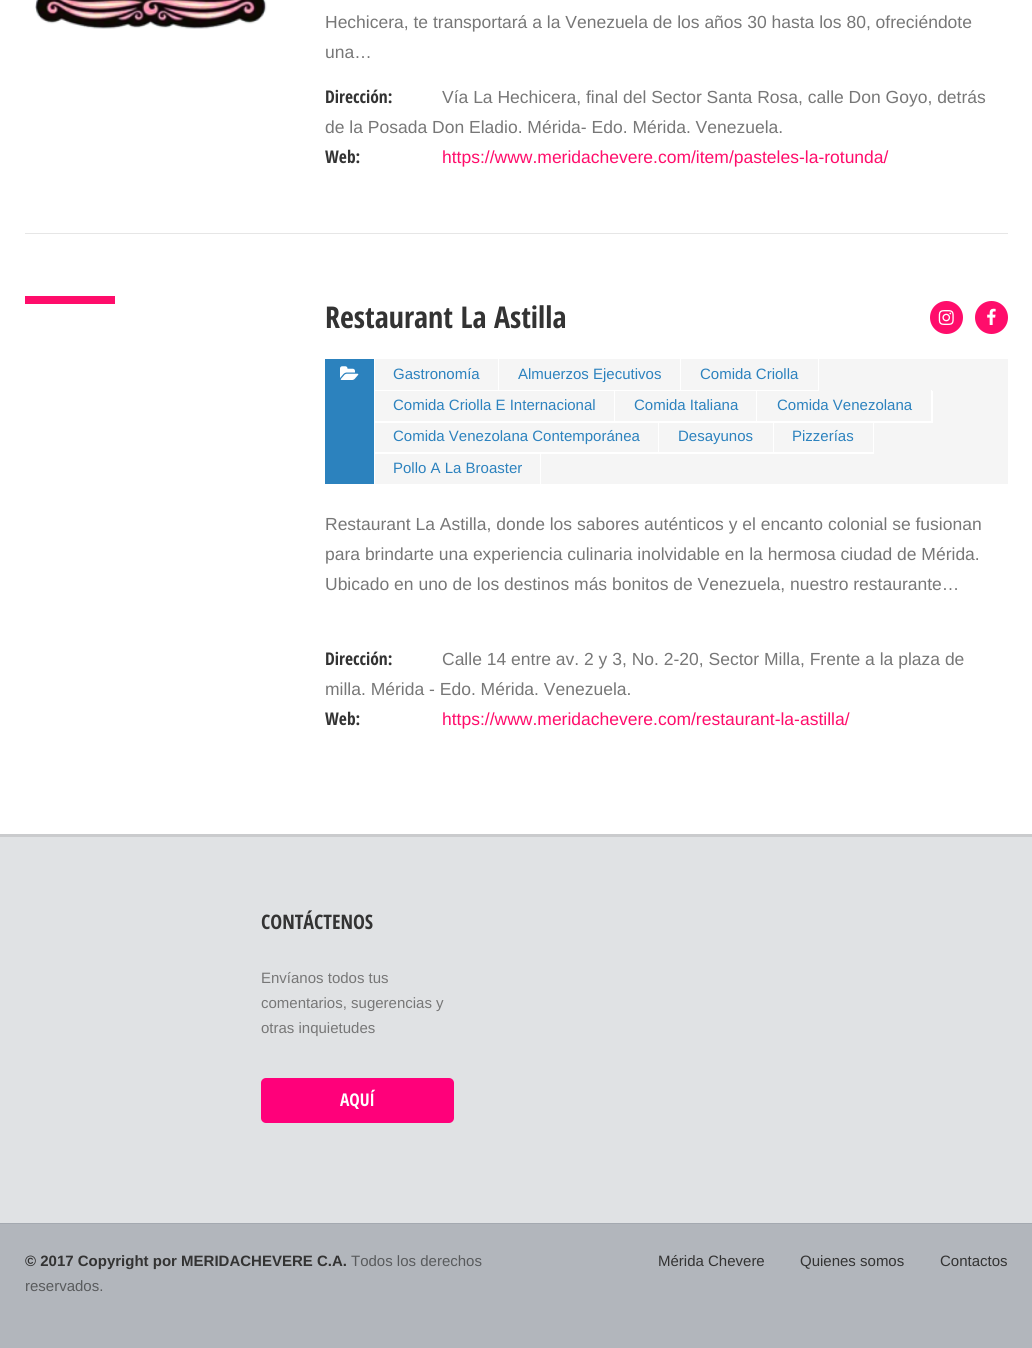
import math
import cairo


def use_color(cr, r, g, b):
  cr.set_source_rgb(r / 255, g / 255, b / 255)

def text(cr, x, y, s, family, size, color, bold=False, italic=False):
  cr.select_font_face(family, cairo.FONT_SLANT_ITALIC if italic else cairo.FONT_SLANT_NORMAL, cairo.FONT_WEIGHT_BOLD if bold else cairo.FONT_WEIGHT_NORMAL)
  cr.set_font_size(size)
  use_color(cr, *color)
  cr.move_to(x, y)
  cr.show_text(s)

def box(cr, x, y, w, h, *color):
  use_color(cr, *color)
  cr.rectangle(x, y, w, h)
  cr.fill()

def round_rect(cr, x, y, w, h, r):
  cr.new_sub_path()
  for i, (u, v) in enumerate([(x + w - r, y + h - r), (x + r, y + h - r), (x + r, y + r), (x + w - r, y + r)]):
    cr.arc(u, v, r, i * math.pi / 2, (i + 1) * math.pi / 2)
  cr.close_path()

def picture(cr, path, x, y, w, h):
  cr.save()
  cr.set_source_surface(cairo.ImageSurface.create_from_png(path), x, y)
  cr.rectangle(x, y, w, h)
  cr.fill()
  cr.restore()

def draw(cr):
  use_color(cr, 255, 255, 255)
  cr.paint()
  picture(cr, "img_01.png", 35, 0, 232, 29)
  box(cr, 25, 233, 983, 1, 230, 230, 230)
  box(cr, 25, 296, 90, 8, 255, 13, 107)
  cr.arc(946.5, 317.5, 16.5, 0, 2 * math.pi)
  cr.fill()
  picture(cr, "img_02.png", 938, 310, 16, 15)
  cr.arc(991.5, 317.5, 16.5, 0, 2 * math.pi)
  cr.fill()
  picture(cr, "img_03.png", 987, 308, 9, 17)
  box(cr, 375, 359, 633, 125, 245, 245, 245)
  box(cr, 325, 359, 49, 125, 44, 130, 190)
  picture(cr, "img_04.png", 340, 366, 19, 14)
  use_color(cr, 255, 255, 255)
  cr.new_path()
  cr.move_to(374, 390)
  cr.line_to(374, 391)
  cr.line_to(499, 391)
  cr.line_to(499, 360)
  cr.line_to(499, 390)
  cr.close_path()
  cr.fill()
  box(cr, 498, 359, 1, 31, 255, 255, 255)
  box(cr, 499, 390, 182, 1, 255, 255, 255)
  box(cr, 680, 359, 1, 31, 255, 255, 255)
  cr.new_path()
  cr.move_to(681, 360)
  cr.line_to(681, 391)
  cr.line_to(819, 391)
  cr.line_to(819, 360)
  cr.line_to(819, 390)
  cr.line_to(681, 390)
  cr.close_path()
  cr.fill()
  box(cr, 818, 359, 1, 31, 255, 255, 255)
  box(cr, 374, 421, 241, 2, 255, 255, 255)
  box(cr, 614, 390, 1, 31, 255, 255, 255)
  cr.new_path()
  cr.move_to(615, 421)
  cr.line_to(615, 423)
  cr.line_to(758, 423)
  cr.line_to(758, 391)
  cr.line_to(758, 421)
  cr.close_path()
  cr.fill()
  box(cr, 756, 390, 1, 31, 255, 255, 255)
  cr.new_path()
  cr.move_to(758, 421)
  cr.line_to(758, 423)
  cr.line_to(933, 423)
  cr.line_to(933, 391)
  cr.line_to(932, 391)
  cr.line_to(932, 421)
  cr.close_path()
  cr.fill()
  box(cr, 931, 390, 1, 31, 255, 255, 255)
  cr.new_path()
  cr.move_to(374, 452)
  cr.line_to(374, 454)
  cr.line_to(659, 454)
  cr.line_to(659, 423)
  cr.line_to(659, 452)
  cr.close_path()
  cr.fill()
  box(cr, 658, 421, 1, 32, 255, 255, 255)
  cr.new_path()
  cr.move_to(659, 452)
  cr.line_to(659, 454)
  cr.line_to(774, 454)
  cr.line_to(774, 423)
  cr.line_to(774, 452)
  cr.close_path()
  cr.fill()
  box(cr, 773, 421, 1, 32, 255, 255, 255)
  cr.new_path()
  cr.move_to(774, 452)
  cr.line_to(774, 454)
  cr.line_to(874, 454)
  cr.line_to(874, 423)
  cr.line_to(874, 452)
  cr.close_path()
  cr.fill()
  box(cr, 873, 421, 1, 32, 255, 255, 255)
  box(cr, 540, 453, 1, 31, 255, 255, 255)
  box(cr, 0, 837, 1032, 386, 224, 226, 228)
  box(cr, 0, 834, 1032, 3, 202, 203, 205)
  use_color(cr, 255, 0, 122)
  round_rect(cr, 261, 1078, 193, 45, 5)
  cr.fill()
  box(cr, 0, 1224, 1032, 124, 178, 182, 188)
  box(cr, 0, 1223, 1032, 1, 164, 169, 176)
  text(cr, 325, 28, "Hechicera, te transportará a la Venezuela de los años 30 hasta los 80, ofreciéndote", "Liberation Sans", 17.5, (119, 119, 119))
  text(cr, 325, 58, "una…", "Liberation Sans", 17.5, (119, 119, 119))
  text(cr, 325, 103, "Dirección:", "Open Sans Condensed", 17.5, (51, 51, 51), bold=True)
  text(cr, 442, 103, "Vía La Hechicera, final del Sector Santa Rosa, calle Don Goyo, detrás", "Liberation Sans", 17.5, (119, 119, 119))
  text(cr, 325, 133, "de la Posada Don Eladio. Mérida- Edo. Mérida. Venezuela.", "Liberation Sans", 17.5, (119, 119, 119))
  text(cr, 325, 163, "Web:", "Open Sans Condensed", 17.5, (51, 51, 51), bold=True)
  text(cr, 442, 163, "https://www.meridachevere.com/item/pasteles-la-rotunda/", "Liberation Sans", 17.5, (255, 13, 107))
  text(cr, 325, 328, "Restaurant La Astilla", "Open Sans Condensed", 30, (51, 51, 51), bold=True)
  text(cr, 393, 379, "Gastronomía", "Liberation Sans", 15, (44, 130, 190))
  text(cr, 518, 379, "Almuerzos Ejecutivos", "Liberation Sans", 15, (44, 130, 190))
  text(cr, 700, 379, "Comida Criolla", "Liberation Sans", 15, (44, 130, 190))
  text(cr, 393, 410, "Comida Criolla E Internacional", "Liberation Sans", 15, (44, 130, 190))
  text(cr, 634, 410, "Comida Italiana", "Liberation Sans", 15, (44, 130, 190))
  text(cr, 777, 410, "Comida Venezolana", "Liberation Sans", 15, (44, 130, 190))
  text(cr, 393, 441, "Comida Venezolana Contemporánea", "Liberation Sans", 15, (44, 130, 190))
  text(cr, 678, 441, "Desayunos", "Liberation Sans", 15, (44, 130, 190))
  text(cr, 792, 441, "Pizzerías", "Liberation Sans", 15, (44, 130, 190))
  text(cr, 393, 473, "Pollo A La Broaster", "Liberation Sans", 15, (44, 130, 190))
  text(cr, 325, 530, "Restaurant La Astilla, donde los sabores auténticos y el encanto colonial se fusionan", "Liberation Sans", 17.5, (119, 119, 119))
  text(cr, 325, 560, "para brindarte una experiencia culinaria inolvidable en la hermosa ciudad de Mérida.", "Liberation Sans", 17.5, (119, 119, 119))
  text(cr, 325, 590, "Ubicado en uno de los destinos más bonitos de Venezuela, nuestro restaurante…", "Liberation Sans", 17.5, (119, 119, 119))
  text(cr, 325, 665, "Dirección:", "Open Sans Condensed", 17.5, (51, 51, 51), bold=True)
  text(cr, 442, 665, "Calle 14 entre av. 2 y 3, No. 2-20, Sector Milla, Frente a la plaza de", "Liberation Sans", 17.5, (119, 119, 119))
  text(cr, 325, 695, "milla. Mérida - Edo. Mérida. Venezuela.", "Liberation Sans", 17.5, (119, 119, 119))
  text(cr, 325, 725, "Web:", "Open Sans Condensed", 17.5, (51, 51, 51), bold=True)
  text(cr, 442, 725, "https://www.meridachevere.com/restaurant-la-astilla/", "Liberation Sans", 17.5, (255, 13, 107))
  text(cr, 261, 929, "CONTÁCTENOS", "Open Sans Condensed", 20, (51, 51, 51), bold=True)
  text(cr, 261, 983, "Envíanos todos tus", "Liberation Sans", 15, (119, 119, 119))
  text(cr, 261, 1008, "comentarios, sugerencias y", "Liberation Sans", 15, (119, 119, 119))
  text(cr, 261, 1033, "otras inquietudes", "Liberation Sans", 15, (119, 119, 119))
  text(cr, 340, 1106, "AQUÍ", "Open Sans Condensed", 17.5, (255, 255, 255), bold=True)
  text(cr, 25, 1266, "© 2017 Copyright por MERIDACHEVERE C.A.", "Liberation Sans", 15, (51, 51, 51), bold=True)
  text(cr, 351, 1266, "Todos los derechos", "Liberation Sans", 15, (89, 91, 93))
  text(cr, 25, 1291, "reservados.", "Liberation Sans", 15, (89, 91, 93))
  text(cr, 658, 1266, "Mérida Chevere", "Liberation Sans", 15, (51, 51, 51))
  text(cr, 800, 1266, "Quienes somos", "Liberation Sans", 15, (51, 51, 51))
  text(cr, 940, 1266, "Contactos", "Liberation Sans", 15, (51, 51, 51))


surface = cairo.ImageSurface(cairo.FORMAT_RGB24, 1032, 1348)
cr = cairo.Context(surface)
options = cairo.FontOptions()
options.set_hint_metrics(cairo.HINT_METRICS_OFF)
options.set_hint_style(cairo.HINT_STYLE_NONE)
cr.set_font_options(options)
cr.set_miter_limit(4)
draw(cr)
surface.write_to_png("out.png")
